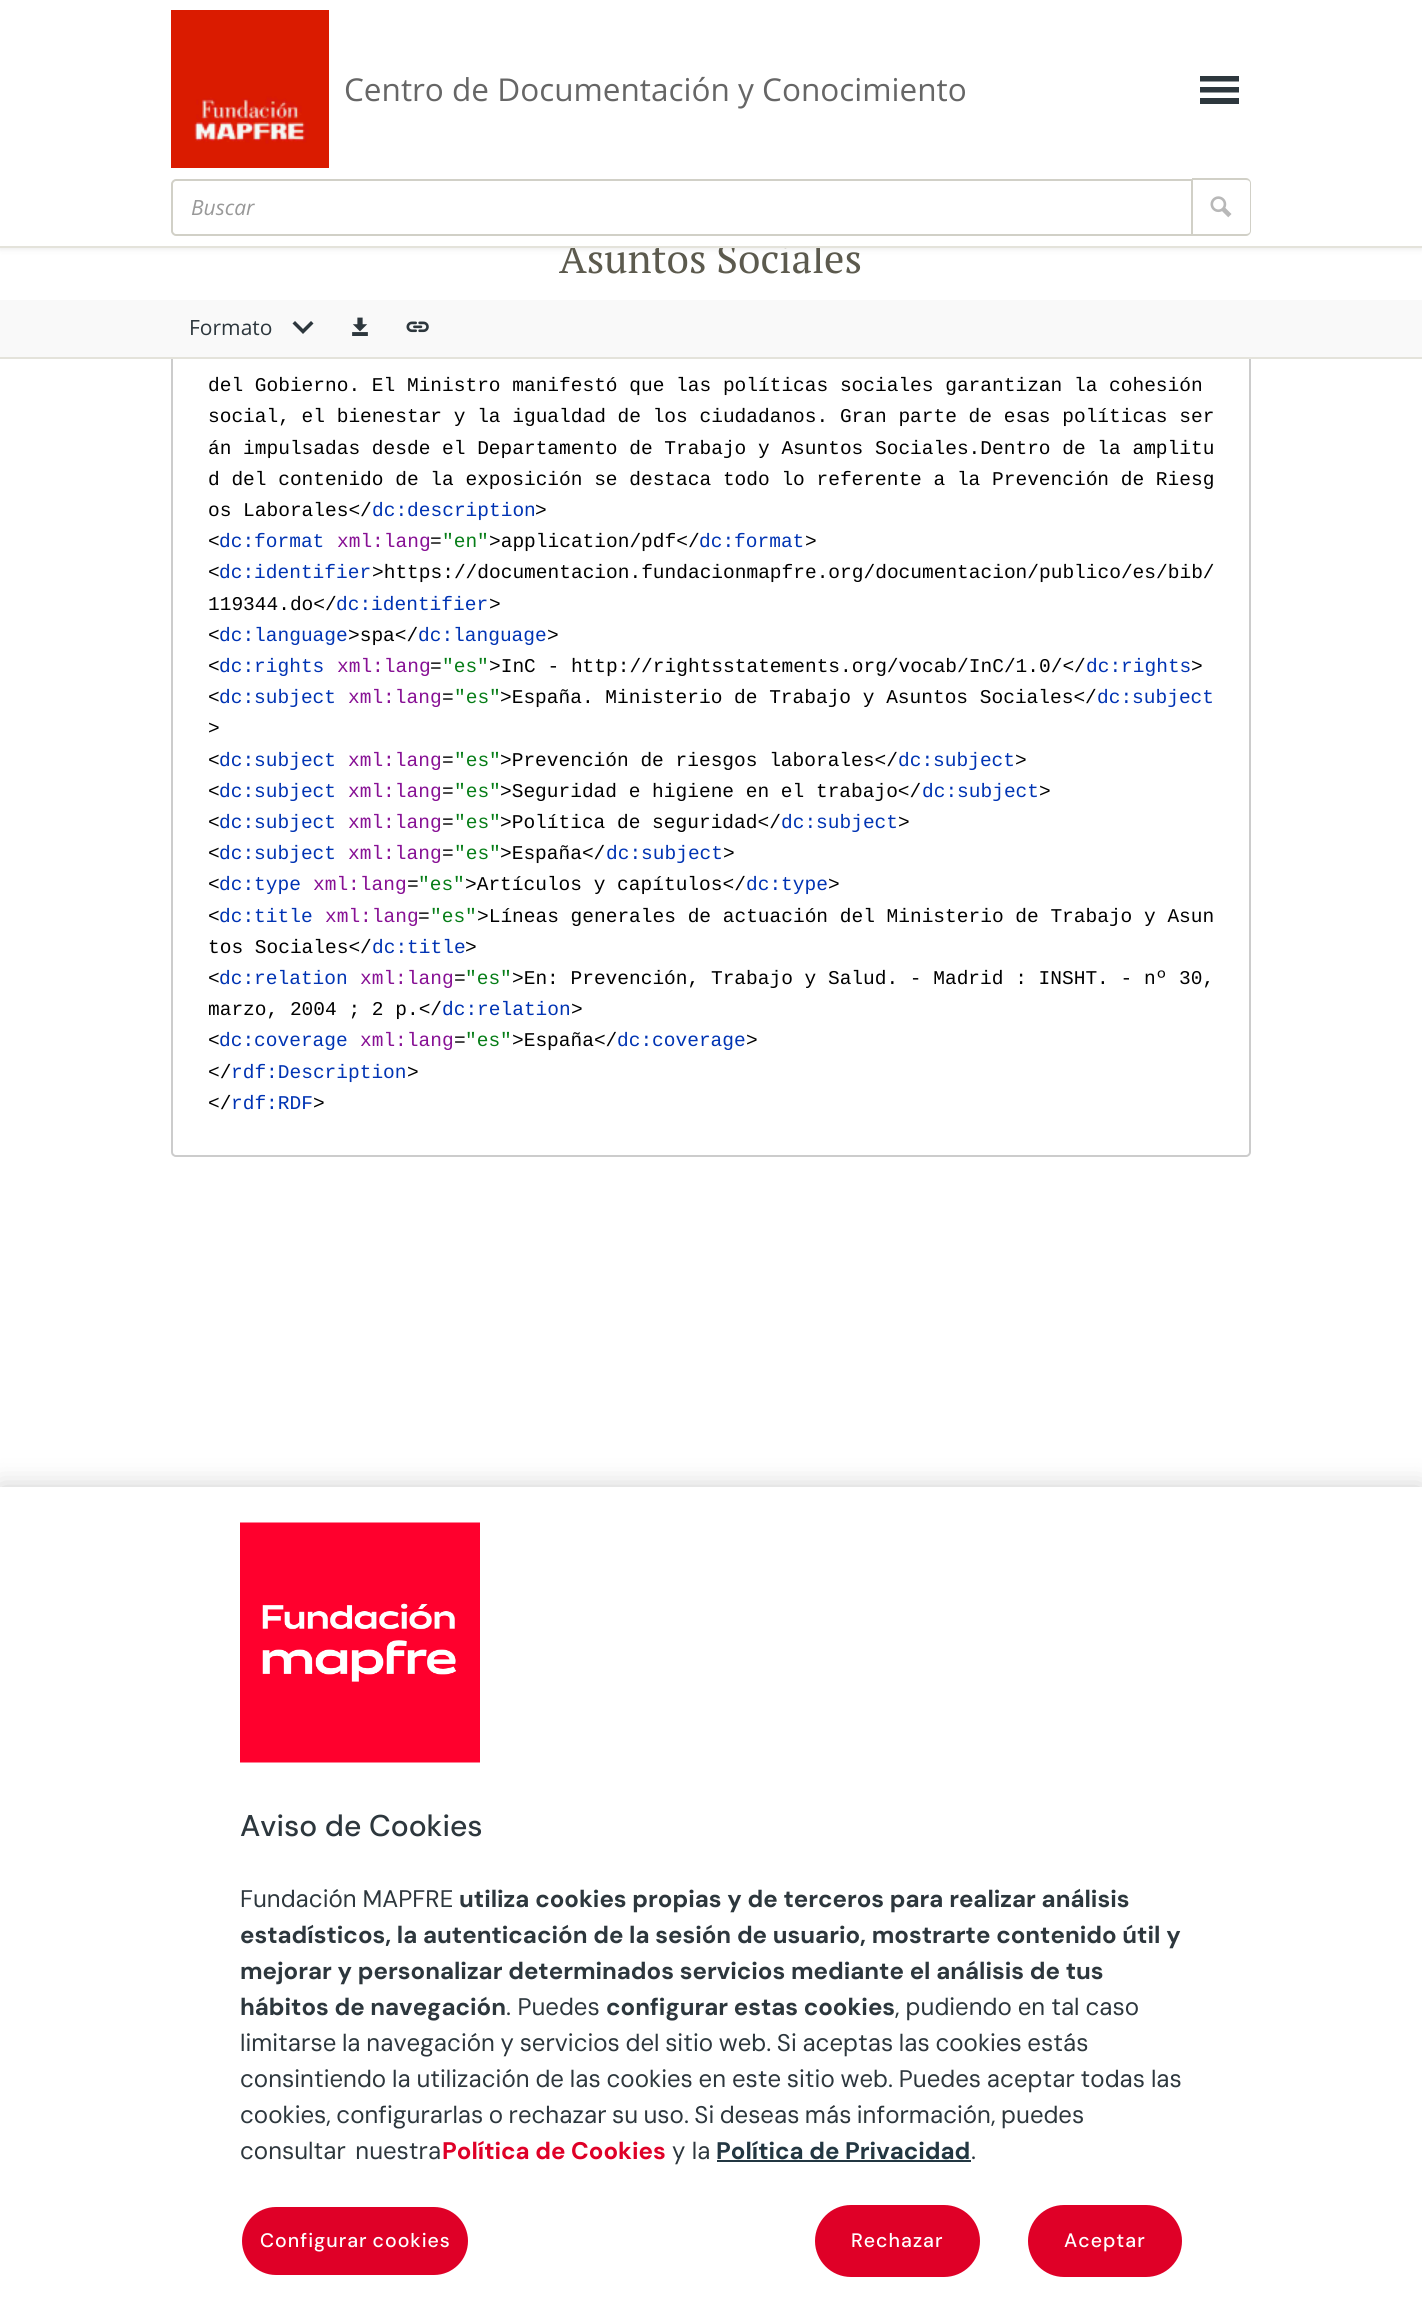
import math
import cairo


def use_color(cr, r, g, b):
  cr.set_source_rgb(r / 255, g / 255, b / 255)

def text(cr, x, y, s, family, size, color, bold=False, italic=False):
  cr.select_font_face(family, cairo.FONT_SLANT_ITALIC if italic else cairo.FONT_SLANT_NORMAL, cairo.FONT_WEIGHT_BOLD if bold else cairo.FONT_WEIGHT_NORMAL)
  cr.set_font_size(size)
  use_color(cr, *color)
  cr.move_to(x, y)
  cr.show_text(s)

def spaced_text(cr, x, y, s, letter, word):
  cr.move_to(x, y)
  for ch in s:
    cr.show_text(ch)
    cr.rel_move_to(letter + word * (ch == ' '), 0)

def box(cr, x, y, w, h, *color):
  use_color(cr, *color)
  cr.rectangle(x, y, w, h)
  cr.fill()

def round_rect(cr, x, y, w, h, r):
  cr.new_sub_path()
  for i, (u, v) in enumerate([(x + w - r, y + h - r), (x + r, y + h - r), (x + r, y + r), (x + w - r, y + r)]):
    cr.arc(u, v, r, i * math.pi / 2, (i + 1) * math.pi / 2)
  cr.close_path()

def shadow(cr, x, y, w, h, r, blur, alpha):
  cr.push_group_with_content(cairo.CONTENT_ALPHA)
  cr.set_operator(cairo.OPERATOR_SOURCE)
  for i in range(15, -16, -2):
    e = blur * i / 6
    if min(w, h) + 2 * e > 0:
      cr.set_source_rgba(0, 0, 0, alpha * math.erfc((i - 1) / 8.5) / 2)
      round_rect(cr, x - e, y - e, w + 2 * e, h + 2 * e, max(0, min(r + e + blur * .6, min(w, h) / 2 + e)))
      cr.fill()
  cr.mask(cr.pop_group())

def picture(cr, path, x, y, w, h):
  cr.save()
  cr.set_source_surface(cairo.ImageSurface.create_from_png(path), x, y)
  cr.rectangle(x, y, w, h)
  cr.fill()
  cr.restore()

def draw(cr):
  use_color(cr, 255, 255, 255)
  cr.paint()
  round_rect(cr, 172, 55, 1078, 1101, 4)
  use_color(cr, 204, 204, 204)
  cr.stroke()
  box(cr, 171, 248, 1080, 52, 255, 255, 255)
  use_color(cr, 0, 0, 0)
  shadow(cr, 0, -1, 1422, 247, 0, 4, 0.2)
  box(cr, 0, 300, 1422, 57, 249, 249, 249)
  box(cr, 0, 357, 1422, 2, 228, 227, 219)
  use_color(cr, 45, 55, 61)
  cr.new_path()
  cr.move_to(313.5, 323.5)
  cr.line_to(311, 321)
  cr.line_to(303, 329)
  cr.line_to(295, 321)
  cr.line_to(292.5, 323.5)
  cr.line_to(303, 334)
  cr.close_path()
  cr.fill()
  picture(cr, "img_03.png", 352, 317, 16, 19)
  picture(cr, "img_04.png", 406, 321, 23, 12)
  use_color(cr, 0, 0, 0)
  shadow(cr, 0, 1487, 1422, 826, 0, 13.5, 0.2)
  box(cr, 0, 1487, 1422, 826, 255, 255, 255)
  picture(cr, "img_05.png", 240, 1522, 240, 241)
  box(cr, 717, 2160, 254, 2, 35, 55, 66)
  use_color(cr, 223, 0, 39)
  round_rect(cr, 241, 2206, 228, 70, 35)
  cr.fill_preserve()
  use_color(cr, 255, 255, 255)
  cr.stroke()
  use_color(cr, 223, 0, 39)
  round_rect(cr, 816, 2206, 163, 70, 35)
  cr.fill_preserve()
  cr.stroke()
  round_rect(cr, 1029, 2206, 152, 70, 35)
  cr.fill_preserve()
  cr.stroke()
  text(cr, 559, 273, "Asuntos Sociales", "PT Serif", 40.5, (92, 90, 78))
  box(cr, 0, 0, 1422, 246, 255, 255, 255)
  cr.new_path()
  cr.move_to(176, 180)
  cr.line_to(1192, 180)
  cr.line_to(1192, 235)
  cr.line_to(176, 235)
  cr.curve_to(174, 235, 172, 233, 172, 231)
  cr.line_to(172, 184)
  cr.curve_to(172, 182, 174, 180, 176, 180)
  cr.close_path()
  use_color(cr, 209, 208, 199)
  cr.stroke()
  cr.set_fill_rule(cairo.FILL_RULE_EVEN_ODD)
  cr.new_path()
  cr.move_to(1192, 178)
  cr.line_to(1246, 178)
  cr.curve_to(1249, 178, 1251, 181, 1251, 183)
  cr.line_to(1251, 231)
  cr.curve_to(1251, 233, 1249, 236, 1246, 236)
  cr.line_to(1192, 236)
  cr.close_path()
  cr.move_to(1192, 180)
  cr.line_to(1246, 180)
  cr.curve_to(1248, 180, 1250, 181, 1250, 183)
  cr.line_to(1250, 231)
  cr.curve_to(1250, 233, 1248, 234, 1246, 234)
  cr.line_to(1192, 234)
  cr.close_path()
  cr.fill()
  picture(cr, "img_02.png", 1210, 196, 22, 22)
  text(cr, 191, 215, "Buscar", "Open Sans", 21, (153, 153, 153), italic=True)
  text(cr, 344, 101, "Centro de Documentación y Conocimiento", "Open Sans", 31.5, (102, 102, 102))
  picture(cr, "img_01.png", 171, 10, 158, 158)
  use_color(cr, 45, 55, 61)
  cr.set_fill_rule(cairo.FILL_RULE_WINDING)
  cr.new_path()
  cr.move_to(1200, 76)
  cr.line_to(1239, 76)
  cr.line_to(1239, 81.5)
  cr.line_to(1200, 81.5)
  cr.close_path()
  cr.move_to(1200, 87)
  cr.line_to(1239, 87)
  cr.line_to(1239, 92.5)
  cr.line_to(1200, 92.5)
  cr.close_path()
  cr.move_to(1200, 98)
  cr.line_to(1239, 98)
  cr.line_to(1239, 104)
  cr.line_to(1200, 104)
  cr.close_path()
  cr.fill()
  box(cr, 0, 246, 1422, 2, 228, 227, 219)
  text(cr, 189, 335, "Formato", "Open Sans", 21, (45, 55, 61))
  text(cr, 208, 391, "del Gobierno. El Ministro manifestó que las políticas sociales garantizan la cohesión", "Liberation Mono", 19.5, (0, 0, 0))
  text(cr, 208, 422, "social, el bienestar y la igualdad de los ciudadanos. Gran parte de esas políticas ser", "Liberation Mono", 19.5, (0, 0, 0))
  text(cr, 208, 454, "án impulsadas desde el Departamento de Trabajo y Asuntos Sociales.Dentro de la amplitu", "Liberation Mono", 19.5, (0, 0, 0))
  text(cr, 208, 485, "d del contenido de la exposición se destaca todo lo referente a la Prevención de Riesg", "Liberation Mono", 19.5, (0, 0, 0))
  text(cr, 208, 516, "os Laborales</", "Liberation Mono", 19.5, (0, 0, 0))
  text(cr, 372, 516, "dc:description", "Liberation Mono", 19.5, (0, 51, 179))
  text(cr, 535, 516, ">", "Liberation Mono", 19.5, (0, 0, 0))
  text(cr, 208, 547, "<", "Liberation Mono", 19.5, (0, 0, 0))
  text(cr, 219, 547, "dc:format", "Liberation Mono", 19.5, (0, 51, 179))
  text(cr, 337, 547, "xml:lang", "Liberation Mono", 19.5, (135, 16, 148))
  text(cr, 430, 547, "=", "Liberation Mono", 19.5, (0, 0, 0))
  text(cr, 442, 547, "\"en\"", "Liberation Mono", 19.5, (6, 125, 23))
  text(cr, 489, 547, ">application/pdf</", "Liberation Mono", 19.5, (0, 0, 0))
  text(cr, 699, 547, "dc:format", "Liberation Mono", 19.5, (0, 51, 179))
  text(cr, 805, 547, ">", "Liberation Mono", 19.5, (0, 0, 0))
  text(cr, 208, 578, "<", "Liberation Mono", 19.5, (0, 0, 0))
  text(cr, 219, 578, "dc:identifier", "Liberation Mono", 19.5, (0, 51, 179))
  text(cr, 372, 578, ">https://documentacion.fundacionmapfre.org/documentacion/publico/es/bib/", "Liberation Mono", 19.5, (0, 0, 0))
  text(cr, 208, 610, "119344.do</", "Liberation Mono", 19.5, (0, 0, 0))
  text(cr, 336, 610, "dc:identifier", "Liberation Mono", 19.5, (0, 51, 179))
  text(cr, 489, 610, ">", "Liberation Mono", 19.5, (0, 0, 0))
  text(cr, 208, 641, "<", "Liberation Mono", 19.5, (0, 0, 0))
  text(cr, 219, 641, "dc:language", "Liberation Mono", 19.5, (0, 51, 179))
  text(cr, 348, 641, ">spa</", "Liberation Mono", 19.5, (0, 0, 0))
  text(cr, 418, 641, "dc:language", "Liberation Mono", 19.5, (0, 51, 179))
  text(cr, 547, 641, ">", "Liberation Mono", 19.5, (0, 0, 0))
  text(cr, 208, 672, "<", "Liberation Mono", 19.5, (0, 0, 0))
  text(cr, 219, 672, "dc:rights", "Liberation Mono", 19.5, (0, 51, 179))
  text(cr, 337, 672, "xml:lang", "Liberation Mono", 19.5, (135, 16, 148))
  text(cr, 430, 672, "=", "Liberation Mono", 19.5, (0, 0, 0))
  text(cr, 442, 672, "\"es\"", "Liberation Mono", 19.5, (6, 125, 23))
  text(cr, 489, 672, ">InC - http://rightsstatements.org/vocab/InC/1.0/</", "Liberation Mono", 19.5, (0, 0, 0))
  text(cr, 1086, 672, "dc:rights", "Liberation Mono", 19.5, (0, 51, 179))
  text(cr, 1191, 672, ">", "Liberation Mono", 19.5, (0, 0, 0))
  text(cr, 208, 703, "<", "Liberation Mono", 19.5, (0, 0, 0))
  text(cr, 219, 703, "dc:subject", "Liberation Mono", 19.5, (0, 51, 179))
  text(cr, 348, 703, "xml:lang", "Liberation Mono", 19.5, (135, 16, 148))
  text(cr, 442, 703, "=", "Liberation Mono", 19.5, (0, 0, 0))
  text(cr, 454, 703, "\"es\"", "Liberation Mono", 19.5, (6, 125, 23))
  text(cr, 500, 703, ">España. Ministerio de Trabajo y Asuntos Sociales</", "Liberation Mono", 19.5, (0, 0, 0))
  text(cr, 1097, 703, "dc:subject", "Liberation Mono", 19.5, (0, 51, 179))
  text(cr, 208, 734, ">", "Liberation Mono", 19.5, (0, 0, 0))
  text(cr, 208, 766, "<", "Liberation Mono", 19.5, (0, 0, 0))
  text(cr, 219, 766, "dc:subject", "Liberation Mono", 19.5, (0, 51, 179))
  text(cr, 348, 766, "xml:lang", "Liberation Mono", 19.5, (135, 16, 148))
  text(cr, 442, 766, "=", "Liberation Mono", 19.5, (0, 0, 0))
  text(cr, 454, 766, "\"es\"", "Liberation Mono", 19.5, (6, 125, 23))
  text(cr, 500, 766, ">Prevención de riesgos laborales</", "Liberation Mono", 19.5, (0, 0, 0))
  text(cr, 898, 766, "dc:subject", "Liberation Mono", 19.5, (0, 51, 179))
  text(cr, 1015, 766, ">", "Liberation Mono", 19.5, (0, 0, 0))
  text(cr, 208, 797, "<", "Liberation Mono", 19.5, (0, 0, 0))
  text(cr, 219, 797, "dc:subject", "Liberation Mono", 19.5, (0, 51, 179))
  text(cr, 348, 797, "xml:lang", "Liberation Mono", 19.5, (135, 16, 148))
  text(cr, 442, 797, "=", "Liberation Mono", 19.5, (0, 0, 0))
  text(cr, 454, 797, "\"es\"", "Liberation Mono", 19.5, (6, 125, 23))
  text(cr, 500, 797, ">Seguridad e higiene en el trabajo</", "Liberation Mono", 19.5, (0, 0, 0))
  text(cr, 922, 797, "dc:subject", "Liberation Mono", 19.5, (0, 51, 179))
  text(cr, 1039, 797, ">", "Liberation Mono", 19.5, (0, 0, 0))
  text(cr, 208, 828, "<", "Liberation Mono", 19.5, (0, 0, 0))
  text(cr, 219, 828, "dc:subject", "Liberation Mono", 19.5, (0, 51, 179))
  text(cr, 348, 828, "xml:lang", "Liberation Mono", 19.5, (135, 16, 148))
  text(cr, 442, 828, "=", "Liberation Mono", 19.5, (0, 0, 0))
  text(cr, 454, 828, "\"es\"", "Liberation Mono", 19.5, (6, 125, 23))
  text(cr, 500, 828, ">Política de seguridad</", "Liberation Mono", 19.5, (0, 0, 0))
  text(cr, 781, 828, "dc:subject", "Liberation Mono", 19.5, (0, 51, 179))
  text(cr, 898, 828, ">", "Liberation Mono", 19.5, (0, 0, 0))
  text(cr, 208, 859, "<", "Liberation Mono", 19.5, (0, 0, 0))
  text(cr, 219, 859, "dc:subject", "Liberation Mono", 19.5, (0, 51, 179))
  text(cr, 348, 859, "xml:lang", "Liberation Mono", 19.5, (135, 16, 148))
  text(cr, 442, 859, "=", "Liberation Mono", 19.5, (0, 0, 0))
  text(cr, 454, 859, "\"es\"", "Liberation Mono", 19.5, (6, 125, 23))
  text(cr, 500, 859, ">España</", "Liberation Mono", 19.5, (0, 0, 0))
  text(cr, 606, 859, "dc:subject", "Liberation Mono", 19.5, (0, 51, 179))
  text(cr, 723, 859, ">", "Liberation Mono", 19.5, (0, 0, 0))
  text(cr, 208, 890, "<", "Liberation Mono", 19.5, (0, 0, 0))
  text(cr, 219, 890, "dc:type", "Liberation Mono", 19.5, (0, 51, 179))
  text(cr, 313, 890, "xml:lang", "Liberation Mono", 19.5, (135, 16, 148))
  text(cr, 407, 890, "=", "Liberation Mono", 19.5, (0, 0, 0))
  text(cr, 418, 890, "\"es\"", "Liberation Mono", 19.5, (6, 125, 23))
  text(cr, 465, 890, ">Artículos y capítulos</", "Liberation Mono", 19.5, (0, 0, 0))
  text(cr, 746, 890, "dc:type", "Liberation Mono", 19.5, (0, 51, 179))
  text(cr, 828, 890, ">", "Liberation Mono", 19.5, (0, 0, 0))
  text(cr, 208, 922, "<", "Liberation Mono", 19.5, (0, 0, 0))
  text(cr, 219, 922, "dc:title", "Liberation Mono", 19.5, (0, 51, 179))
  text(cr, 325, 922, "xml:lang", "Liberation Mono", 19.5, (135, 16, 148))
  text(cr, 418, 922, "=", "Liberation Mono", 19.5, (0, 0, 0))
  text(cr, 430, 922, "\"es\"", "Liberation Mono", 19.5, (6, 125, 23))
  text(cr, 477, 922, ">Líneas generales de actuación del Ministerio de Trabajo y Asun", "Liberation Mono", 19.5, (0, 0, 0))
  text(cr, 208, 953, "tos Sociales</", "Liberation Mono", 19.5, (0, 0, 0))
  text(cr, 372, 953, "dc:title", "Liberation Mono", 19.5, (0, 51, 179))
  text(cr, 465, 953, ">", "Liberation Mono", 19.5, (0, 0, 0))
  text(cr, 208, 984, "<", "Liberation Mono", 19.5, (0, 0, 0))
  text(cr, 219, 984, "dc:relation", "Liberation Mono", 19.5, (0, 51, 179))
  text(cr, 360, 984, "xml:lang", "Liberation Mono", 19.5, (135, 16, 148))
  text(cr, 454, 984, "=", "Liberation Mono", 19.5, (0, 0, 0))
  text(cr, 465, 984, "\"es\"", "Liberation Mono", 19.5, (6, 125, 23))
  text(cr, 512, 984, ">En: Prevención, Trabajo y Salud. - Madrid : INSHT. - nº 30,", "Liberation Mono", 19.5, (0, 0, 0))
  text(cr, 208, 1015, "marzo, 2004 ; 2 p.</", "Liberation Mono", 19.5, (0, 0, 0))
  text(cr, 442, 1015, "dc:relation", "Liberation Mono", 19.5, (0, 51, 179))
  text(cr, 571, 1015, ">", "Liberation Mono", 19.5, (0, 0, 0))
  text(cr, 208, 1046, "<", "Liberation Mono", 19.5, (0, 0, 0))
  text(cr, 219, 1046, "dc:coverage", "Liberation Mono", 19.5, (0, 51, 179))
  text(cr, 360, 1046, "xml:lang", "Liberation Mono", 19.5, (135, 16, 148))
  text(cr, 454, 1046, "=", "Liberation Mono", 19.5, (0, 0, 0))
  text(cr, 465, 1046, "\"es\"", "Liberation Mono", 19.5, (6, 125, 23))
  text(cr, 512, 1046, ">España</", "Liberation Mono", 19.5, (0, 0, 0))
  text(cr, 617, 1046, "dc:coverage", "Liberation Mono", 19.5, (0, 51, 179))
  text(cr, 746, 1046, ">", "Liberation Mono", 19.5, (0, 0, 0))
  text(cr, 208, 1078, "</", "Liberation Mono", 19.5, (0, 0, 0))
  text(cr, 231, 1078, "rdf:Description", "Liberation Mono", 19.5, (0, 51, 179))
  text(cr, 407, 1078, ">", "Liberation Mono", 19.5, (0, 0, 0))
  text(cr, 208, 1109, "</", "Liberation Mono", 19.5, (0, 0, 0))
  text(cr, 231, 1109, "rdf:RDF", "Liberation Mono", 19.5, (0, 51, 179))
  text(cr, 313, 1109, ">", "Liberation Mono", 19.5, (0, 0, 0))
  text(cr, 240, 1836, "Aviso de Cookies", "DM Sans Medium", 30, (45, 55, 61))
  cr.select_font_face("DM Sans")
  cr.set_font_size(24)
  spaced_text(cr, 240, 1907, "Fundación MAPFRE", 0, -0.5)
  cr.select_font_face("DM Sans", cairo.FONT_SLANT_NORMAL, cairo.FONT_WEIGHT_BOLD)
  spaced_text(cr, 459, 1907, "utiliza cookies propias y de terceros para realizar análisis", 0, 0.1)
  spaced_text(cr, 240, 1943, "estadísticos, la autenticación de la sesión de usuario, mostrarte contenido útil y", 0, 0.1)
  spaced_text(cr, 240, 1979, "mejorar y personalizar determinados servicios mediante el análisis de tus", 0, 0.1)
  text(cr, 240, 2015, "hábitos de navegación", "DM Sans", 24, (45, 55, 61), bold=True)
  text(cr, 506, 2015, ". Puedes", "DM Sans", 24, (45, 55, 61))
  text(cr, 606, 2015, "configurar estas cookies", "DM Sans", 24, (45, 55, 61), bold=True)
  cr.select_font_face("DM Sans")
  spaced_text(cr, 895, 2015, ", pudiendo en tal caso", 0, -0.5)
  spaced_text(cr, 240, 2051, "limitarse la navegación y servicios del sitio web. Si aceptas las cookies estás", 0, -0.75)
  spaced_text(cr, 240, 2087, "consintiendo la utilización de las cookies en este sitio web. Puedes aceptar todas las", 0, -0.6)
  spaced_text(cr, 240, 2123, "cookies, configurarlas o rechazar su uso. Si deseas más información, puedes", 0, -1)
  spaced_text(cr, 240, 2159, "consultar nuestra", 0, 3)
  text(cr, 442, 2159, "Política de Cookies", "DM Sans", 24, (223, 0, 39), bold=True)
  text(cr, 672, 2159, "y la", "DM Sans", 24, (45, 55, 61))
  text(cr, 716, 2159, "Política de Privacidad", "DM Sans", 24, (35, 55, 66), bold=True)
  text(cr, 971, 2159, ".", "DM Sans", 24, (45, 55, 61))
  cr.select_font_face("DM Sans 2 Medium")
  cr.set_font_size(19.5)
  use_color(cr, 255, 255, 255)
  spaced_text(cr, 260, 2247, "Configurar cookies", 1, -1)
  spaced_text(cr, 851, 2247, "Rechazar", 1, 0)
  spaced_text(cr, 1064, 2247, "Aceptar", 1, 0)


surface = cairo.ImageSurface(cairo.FORMAT_RGB24, 1422, 2313)
cr = cairo.Context(surface)
options = cairo.FontOptions()
options.set_hint_metrics(cairo.HINT_METRICS_OFF)
options.set_hint_style(cairo.HINT_STYLE_NONE)
cr.set_font_options(options)
cr.set_miter_limit(4)
draw(cr)
surface.write_to_png("out.png")
